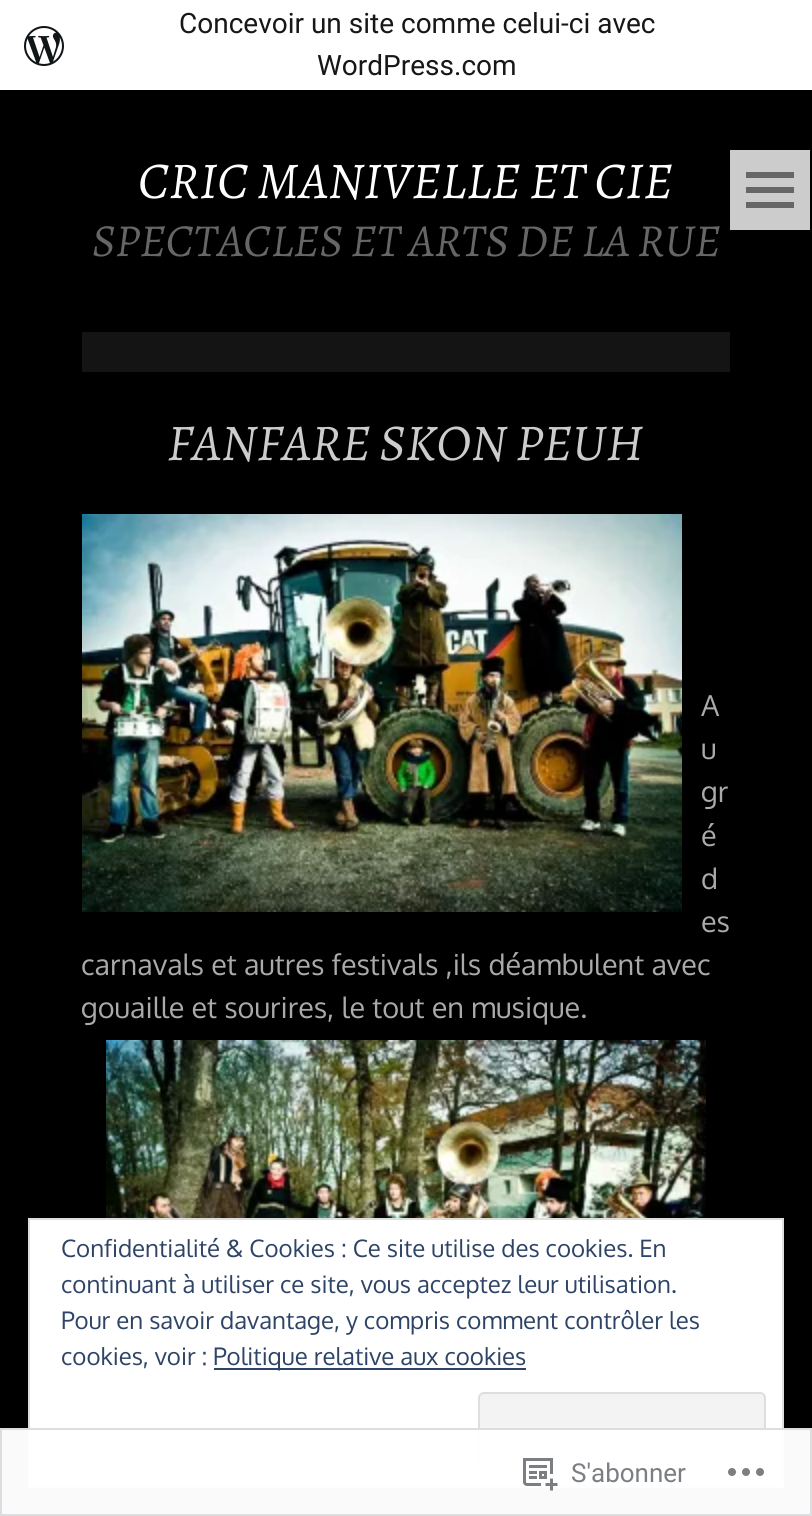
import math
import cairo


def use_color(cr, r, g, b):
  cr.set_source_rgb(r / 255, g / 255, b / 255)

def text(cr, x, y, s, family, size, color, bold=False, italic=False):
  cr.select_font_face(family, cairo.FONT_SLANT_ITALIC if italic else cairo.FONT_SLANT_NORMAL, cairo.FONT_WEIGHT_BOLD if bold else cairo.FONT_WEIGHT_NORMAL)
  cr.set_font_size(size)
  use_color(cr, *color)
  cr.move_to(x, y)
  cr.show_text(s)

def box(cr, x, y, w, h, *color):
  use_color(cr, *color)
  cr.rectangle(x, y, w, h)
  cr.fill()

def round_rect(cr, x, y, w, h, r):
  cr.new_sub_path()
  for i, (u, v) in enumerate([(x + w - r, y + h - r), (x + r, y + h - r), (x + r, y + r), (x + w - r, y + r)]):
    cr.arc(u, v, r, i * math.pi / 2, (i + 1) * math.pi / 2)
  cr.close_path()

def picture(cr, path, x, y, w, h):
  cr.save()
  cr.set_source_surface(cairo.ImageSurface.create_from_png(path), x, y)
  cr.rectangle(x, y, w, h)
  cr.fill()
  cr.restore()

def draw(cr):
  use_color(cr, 0, 0, 0)
  cr.paint()
  box(cr, 0, 0, 812, 90, 255, 255, 255)
  picture(cr, "img_01.png", 24, 26, 40, 40)
  box(cr, 82, 332, 648, 40, 20, 20, 20)
  box(cr, 730, 150, 80, 80, 204, 204, 204)
  use_color(cr, 102, 102, 102)
  cr.new_path()
  cr.move_to(746, 208)
  cr.line_to(746, 202)
  cr.line_to(794, 202)
  cr.line_to(794, 208)
  cr.close_path()
  cr.move_to(746, 172)
  cr.line_to(794, 172)
  cr.line_to(794, 178)
  cr.line_to(746, 178)
  cr.close_path()
  cr.move_to(746, 193)
  cr.line_to(746, 187)
  cr.line_to(794, 187)
  cr.line_to(794, 193)
  cr.close_path()
  cr.fill()
  picture(cr, "img_02.png", 82, 514, 600, 398)
  picture(cr, "img_03.png", 106, 1040, 600, 178)
  use_color(cr, 255, 255, 255)
  cr.rectangle(29, 1219, 754, 268)
  cr.fill_preserve()
  use_color(cr, 222, 222, 222)
  cr.stroke()
  box(cr, 214, 1368, 312, 2, 46, 68, 103)
  use_color(cr, 243, 243, 243)
  round_rect(cr, 479, 1393, 286, 76, 5)
  cr.fill_preserve()
  use_color(cr, 222, 222, 222)
  cr.stroke()
  cr.set_source_rgba(1, 1, 1, 0.98)
  cr.rectangle(0, 1428, 812, 88)
  cr.fill()
  cr.rectangle(1, 1429, 810, 86)
  cr.set_source_rgba(0.863, 0.863, 0.871, 0.98)
  cr.stroke()
  picture(cr, "img_04.png", 523, 1458, 35, 33)
  picture(cr, "img_05.png", 728, 1468, 36, 8)
  text(cr, 179, 33, "Concevoir un site comme celui-ci avec", "Roboto", 28, (23, 23, 23))
  text(cr, 317, 75, "WordPress.com", "Roboto", 28, (23, 23, 23))
  text(cr, 138, 198, "CRIC MANIVELLE ET CIE", "Alegreya", 51.75, (255, 255, 255), italic=True)
  text(cr, 92, 256, "SPECTACLES ET ARTS DE LA RUE", "Alegreya", 46.1, (102, 102, 102), italic=True)
  text(cr, 167, 460, "FANFARE SKON PEUH", "Alegreya", 51.75, (204, 204, 204), italic=True)
  text(cr, 701, 716, "A", "Oxygen", 28.8, (170, 170, 170))
  text(cr, 701, 759, "u", "Oxygen", 28.8, (170, 170, 170))
  text(cr, 701, 802, "gr", "Oxygen", 28.8, (170, 170, 170))
  text(cr, 701, 846, "é", "Oxygen", 28.8, (170, 170, 170))
  text(cr, 701, 889, "d", "Oxygen", 28.8, (170, 170, 170))
  text(cr, 701, 932, "es", "Oxygen", 28.8, (170, 170, 170))
  text(cr, 81, 975, "carnavals et autres festivals ,ils déambulent avec", "Oxygen", 28.8, (170, 170, 170))
  text(cr, 81, 1018, "gouaille et sourires, le tout en musique.", "Oxygen", 28.8, (170, 170, 170))
  text(cr, 61, 1257, "Confidentialité & Cookies : Ce site utilise des cookies. En", "Oxygen", 24, (46, 68, 103))
  text(cr, 61, 1293, "continuant à utiliser ce site, vous acceptez leur utilisation.", "Oxygen", 24, (46, 68, 103))
  text(cr, 61, 1329, "Pour en savoir davantage, y compris comment contrôler les", "Oxygen", 24, (46, 68, 103))
  text(cr, 61, 1365, "cookies, voir :", "Oxygen", 24, (46, 68, 103))
  text(cr, 213, 1365, "Politique relative aux cookies", "Oxygen", 24, (46, 68, 103))
  text(cr, 571, 1482, "S'abonner", "Roboto", 26, (123, 127, 132))


surface = cairo.ImageSurface(cairo.FORMAT_RGB24, 812, 1516)
cr = cairo.Context(surface)
options = cairo.FontOptions()
options.set_hint_metrics(cairo.HINT_METRICS_OFF)
options.set_hint_style(cairo.HINT_STYLE_NONE)
cr.set_font_options(options)
cr.set_miter_limit(4)
draw(cr)
surface.write_to_png("out.png")
